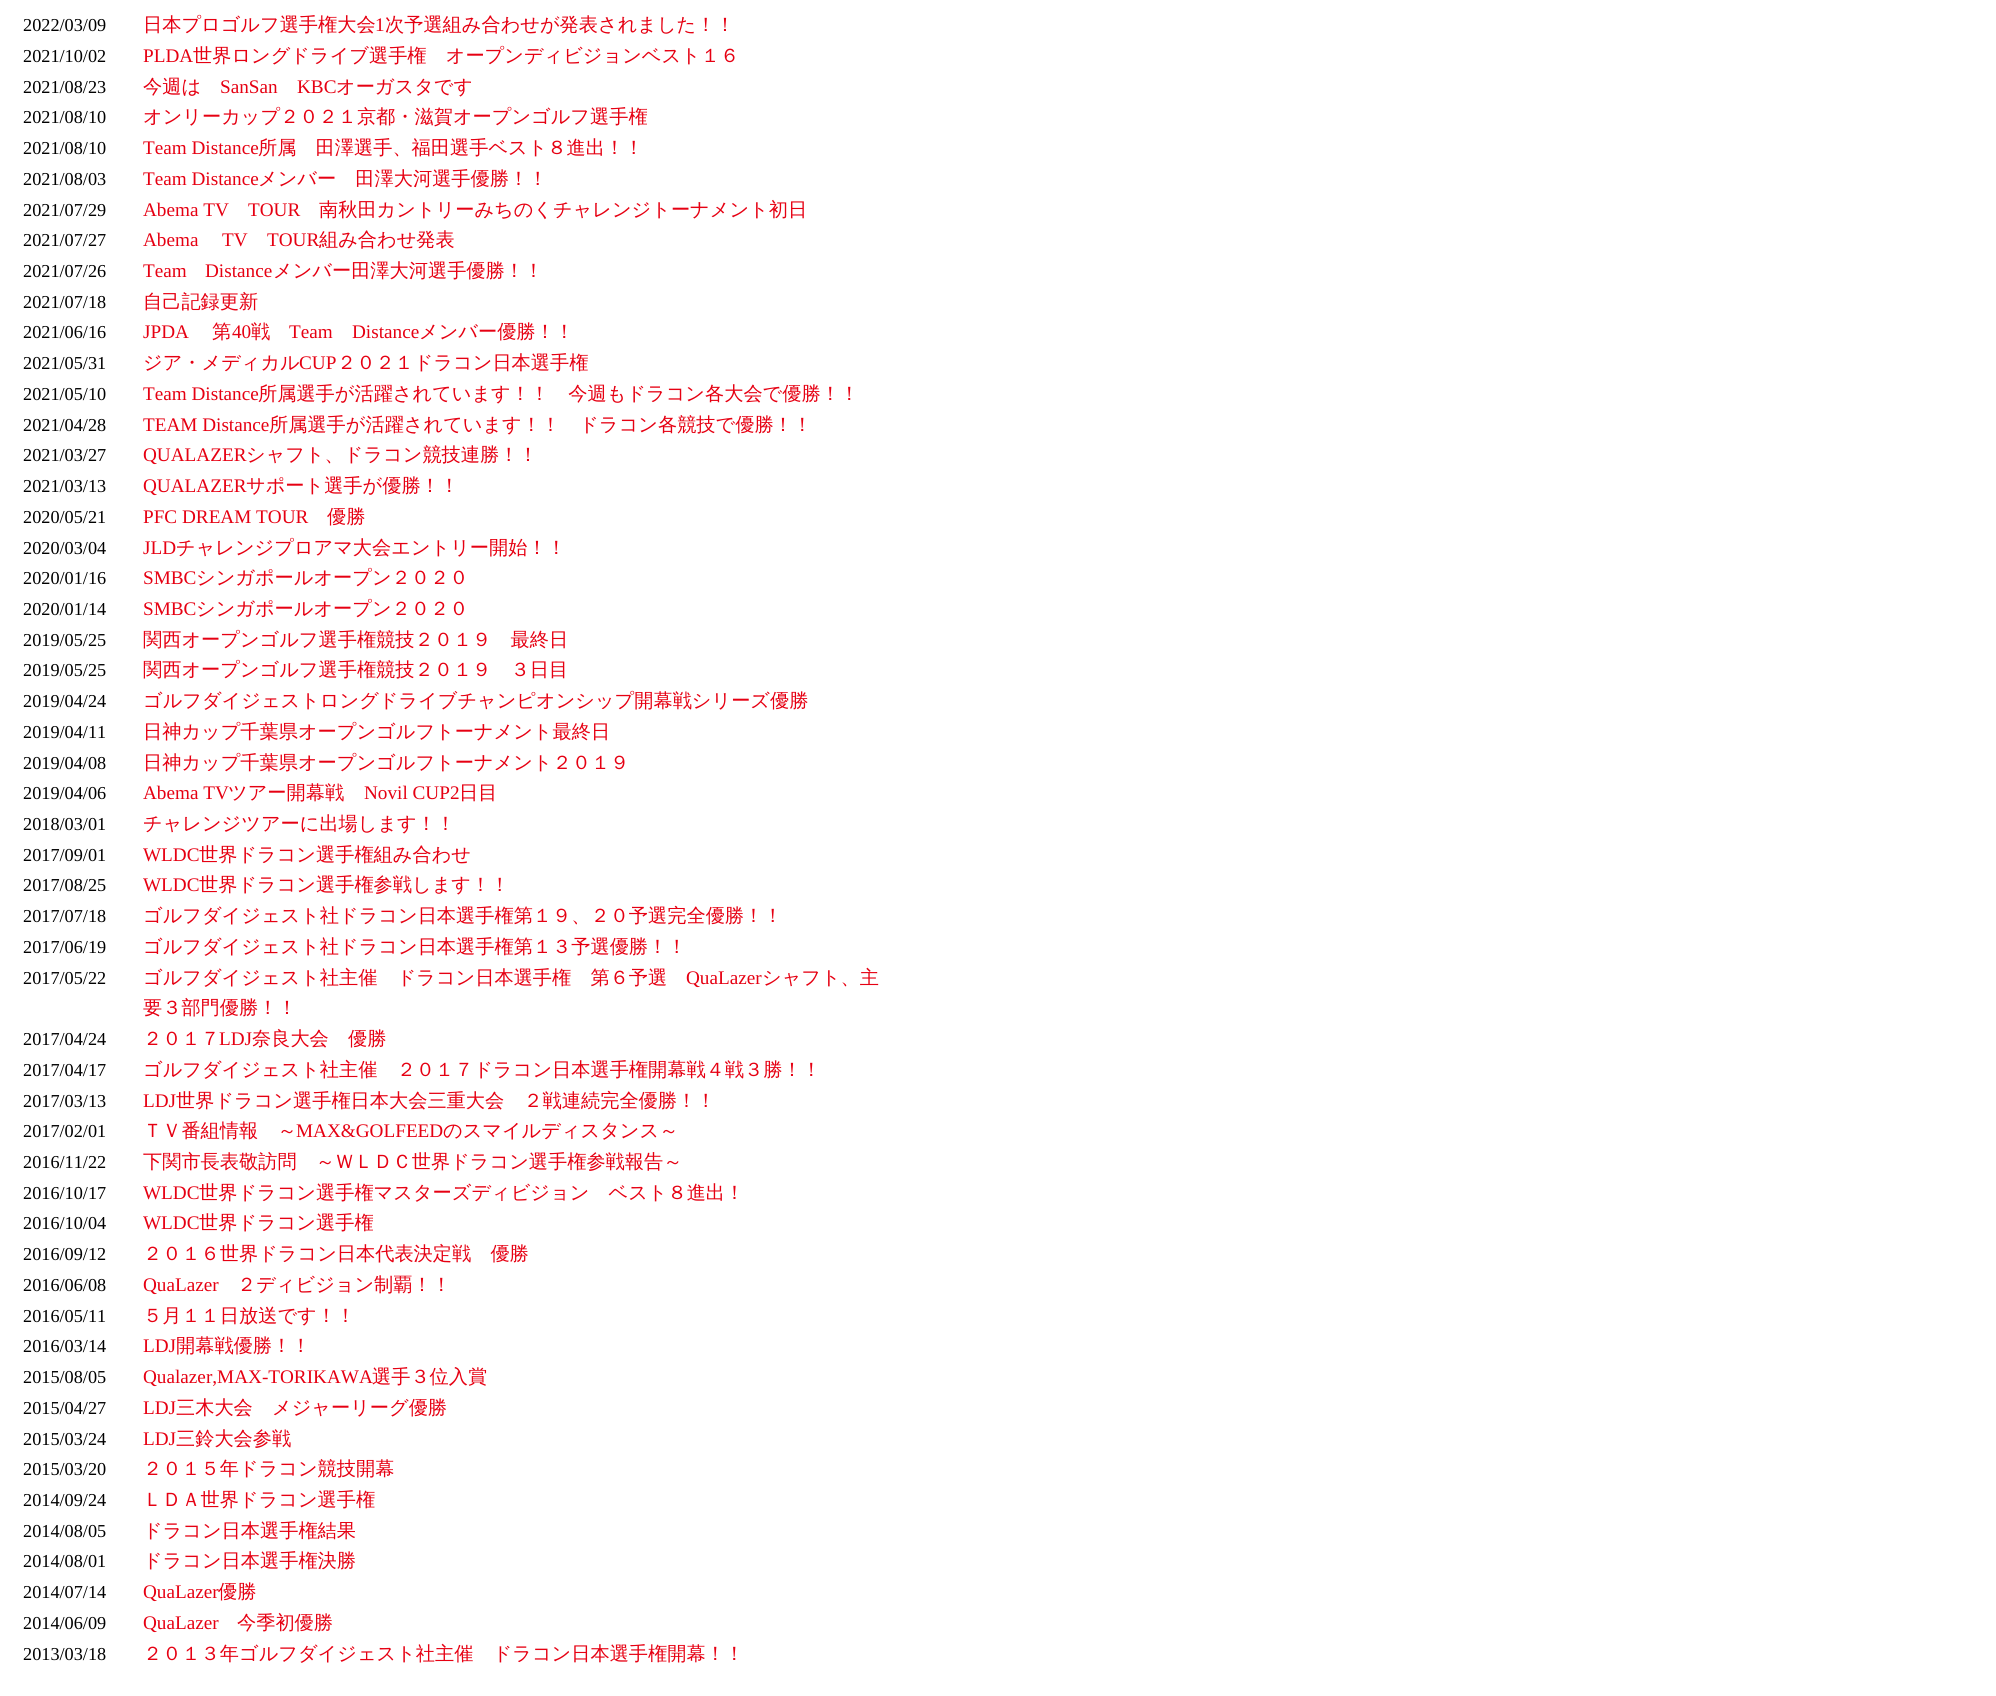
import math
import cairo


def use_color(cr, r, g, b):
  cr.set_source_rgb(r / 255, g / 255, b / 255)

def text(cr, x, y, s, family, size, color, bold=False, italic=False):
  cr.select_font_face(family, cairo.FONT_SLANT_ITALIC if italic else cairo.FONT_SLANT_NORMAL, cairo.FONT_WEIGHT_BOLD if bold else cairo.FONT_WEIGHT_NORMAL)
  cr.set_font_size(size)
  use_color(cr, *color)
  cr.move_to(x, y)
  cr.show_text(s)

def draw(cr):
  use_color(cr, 255, 255, 255)
  cr.paint()
  text(cr, 23, 31, "2022/03/09", "Liberation Serif", 18.25, (0, 0, 0))
  text(cr, 143, 31, "日本プロゴルフ選手権大会", "WenQuanYi Zen Hei Medium", 19.2, (230, 0, 18))
  text(cr, 375, 31, "1", "Liberation Serif", 19.2, (230, 0, 18))
  text(cr, 385, 31, "次予選組み合わせが発表されました！！", "WenQuanYi Zen Hei Medium", 19.2, (230, 0, 18))
  text(cr, 23, 62, "2021/10/02", "Liberation Serif", 18.25, (0, 0, 0))
  text(cr, 143, 62, "PLDA", "Liberation Serif", 19.2, (230, 0, 18))
  text(cr, 193, 62, "世界ロングドライブ選手権　オープンディビジョンベスト１６", "WenQuanYi Zen Hei Medium", 19.2, (230, 0, 18))
  text(cr, 23, 93, "2021/08/23", "Liberation Serif", 18.25, (0, 0, 0))
  text(cr, 143, 93, "今週は", "WenQuanYi Zen Hei Medium", 19.2, (230, 0, 18))
  text(cr, 220, 93, "SanSan", "Liberation Serif", 19.2, (230, 0, 18))
  text(cr, 297, 93, "KBC", "Liberation Serif", 19.2, (230, 0, 18))
  text(cr, 336, 93, "オーガスタです", "WenQuanYi Zen Hei Medium", 19.2, (230, 0, 18))
  text(cr, 23, 123, "2021/08/10", "Liberation Serif", 18.25, (0, 0, 0))
  text(cr, 143, 123, "オンリーカップ２０２１京都・滋賀オープンゴルフ選手権", "WenQuanYi Zen Hei Medium", 19.2, (230, 0, 18))
  text(cr, 23, 154, "2021/08/10", "Liberation Serif", 18.25, (0, 0, 0))
  text(cr, 143, 154, "Team Distance", "Liberation Serif", 19.2, (230, 0, 18))
  text(cr, 258, 154, "所属　田澤選手、福田選手ベスト８進出！！", "WenQuanYi Zen Hei Medium", 19.2, (230, 0, 18))
  text(cr, 23, 185, "2021/08/03", "Liberation Serif", 18.25, (0, 0, 0))
  text(cr, 143, 185, "Team Distance", "Liberation Serif", 19.2, (230, 0, 18))
  text(cr, 258, 185, "メンバー　田澤大河選手優勝！！", "WenQuanYi Zen Hei Medium", 19.2, (230, 0, 18))
  text(cr, 23, 216, "2021/07/29", "Liberation Serif", 18.25, (0, 0, 0))
  text(cr, 143, 216, "Abema TV", "Liberation Serif", 19.2, (230, 0, 18))
  text(cr, 248, 216, "TOUR", "Liberation Serif", 19.2, (230, 0, 18))
  text(cr, 319, 216, "南秋田カントリーみちのくチャレンジトーナメント初日", "WenQuanYi Zen Hei Medium", 19.2, (230, 0, 18))
  text(cr, 23, 246, "2021/07/27", "Liberation Serif", 18.25, (0, 0, 0))
  text(cr, 143, 246, "Abema", "Liberation Serif", 19.2, (230, 0, 18))
  text(cr, 222, 246, "TV", "Liberation Serif", 19.2, (230, 0, 18))
  text(cr, 267, 246, "TOUR", "Liberation Serif", 19.2, (230, 0, 18))
  text(cr, 319, 246, "組み合わせ発表", "WenQuanYi Zen Hei Medium", 19.2, (230, 0, 18))
  text(cr, 23, 277, "2021/07/26", "Liberation Serif", 18.25, (0, 0, 0))
  text(cr, 143, 277, "Team", "Liberation Serif", 19.2, (230, 0, 18))
  text(cr, 205, 277, "Distance", "Liberation Serif", 19.2, (230, 0, 18))
  text(cr, 273, 277, "メンバー田澤大河選手優勝！！", "WenQuanYi Zen Hei Medium", 19.2, (230, 0, 18))
  text(cr, 23, 308, "2021/07/18", "Liberation Serif", 18.25, (0, 0, 0))
  text(cr, 143, 308, "自己記録更新", "WenQuanYi Zen Hei Medium", 19.2, (230, 0, 18))
  text(cr, 23, 338, "2021/06/16", "Liberation Serif", 18.25, (0, 0, 0))
  text(cr, 143, 338, "JPDA", "Liberation Serif", 19.2, (230, 0, 18))
  text(cr, 212, 338, "第", "WenQuanYi Zen Hei Medium", 19.2, (230, 0, 18))
  text(cr, 232, 338, "40", "Liberation Serif", 19.2, (230, 0, 18))
  text(cr, 251, 338, "戦", "WenQuanYi Zen Hei Medium", 19.2, (230, 0, 18))
  text(cr, 289, 338, "Team", "Liberation Serif", 19.2, (230, 0, 18))
  text(cr, 352, 338, "Distance", "Liberation Serif", 19.2, (230, 0, 18))
  text(cr, 419, 338, "メンバー優勝！！", "WenQuanYi Zen Hei Medium", 19.2, (230, 0, 18))
  text(cr, 23, 369, "2021/05/31", "Liberation Serif", 18.25, (0, 0, 0))
  text(cr, 143, 369, "ジア・メディカル", "WenQuanYi Zen Hei Medium", 19.2, (230, 0, 18))
  text(cr, 299, 369, "CUP", "Liberation Serif", 19.2, (230, 0, 18))
  text(cr, 337, 369, "２０２１ドラコン日本選手権", "WenQuanYi Zen Hei Medium", 19.2, (230, 0, 18))
  text(cr, 23, 400, "2021/05/10", "Liberation Serif", 18.25, (0, 0, 0))
  text(cr, 143, 400, "Team Distance", "Liberation Serif", 19.2, (230, 0, 18))
  text(cr, 258, 400, "所属選手が活躍されています！！　今週もドラコン各大会で優勝！！", "WenQuanYi Zen Hei Medium", 19.2, (230, 0, 18))
  text(cr, 23, 431, "2021/04/28", "Liberation Serif", 18.25, (0, 0, 0))
  text(cr, 143, 431, "TEAM Distance", "Liberation Serif", 19.2, (230, 0, 18))
  text(cr, 269, 431, "所属選手が活躍されています！！　ドラコン各競技で優勝！！", "WenQuanYi Zen Hei Medium", 19.2, (230, 0, 18))
  text(cr, 23, 461, "2021/03/27", "Liberation Serif", 18.25, (0, 0, 0))
  text(cr, 143, 461, "QUALAZER", "Liberation Serif", 19.2, (230, 0, 18))
  text(cr, 246, 461, "シャフト、ドラコン競技連勝！！", "WenQuanYi Zen Hei Medium", 19.2, (230, 0, 18))
  text(cr, 23, 492, "2021/03/13", "Liberation Serif", 18.25, (0, 0, 0))
  text(cr, 143, 492, "QUALAZER", "Liberation Serif", 19.2, (230, 0, 18))
  text(cr, 246, 492, "サポート選手が優勝！！", "WenQuanYi Zen Hei Medium", 19.2, (230, 0, 18))
  text(cr, 23, 523, "2020/05/21", "Liberation Serif", 18.25, (0, 0, 0))
  text(cr, 143, 523, "PFC DREAM TOUR", "Liberation Serif", 19.2, (230, 0, 18))
  text(cr, 327, 523, "優勝", "WenQuanYi Zen Hei Medium", 19.2, (230, 0, 18))
  text(cr, 23, 554, "2020/03/04", "Liberation Serif", 18.25, (0, 0, 0))
  text(cr, 143, 554, "JLD", "Liberation Serif", 19.2, (230, 0, 18))
  text(cr, 176, 554, "チャレンジプロアマ大会エントリー開始！！", "WenQuanYi Zen Hei Medium", 19.2, (230, 0, 18))
  text(cr, 23, 584, "2020/01/16", "Liberation Serif", 18.25, (0, 0, 0))
  text(cr, 143, 584, "SMBC", "Liberation Serif", 19.2, (230, 0, 18))
  text(cr, 196, 584, "シンガポールオープン２０２０", "WenQuanYi Zen Hei Medium", 19.2, (230, 0, 18))
  text(cr, 23, 615, "2020/01/14", "Liberation Serif", 18.25, (0, 0, 0))
  text(cr, 143, 615, "SMBC", "Liberation Serif", 19.2, (230, 0, 18))
  text(cr, 196, 615, "シンガポールオープン２０２０", "WenQuanYi Zen Hei Medium", 19.2, (230, 0, 18))
  text(cr, 23, 646, "2019/05/25", "Liberation Serif", 18.25, (0, 0, 0))
  text(cr, 143, 646, "関西オープンゴルフ選手権競技２０１９　最終日", "WenQuanYi Zen Hei Medium", 19.2, (230, 0, 18))
  text(cr, 23, 676, "2019/05/25", "Liberation Serif", 18.25, (0, 0, 0))
  text(cr, 143, 676, "関西オープンゴルフ選手権競技２０１９　３日目", "WenQuanYi Zen Hei Medium", 19.2, (230, 0, 18))
  text(cr, 23, 707, "2019/04/24", "Liberation Serif", 18.25, (0, 0, 0))
  text(cr, 143, 707, "ゴルフダイジェストロングドライブチャンピオンシップ開幕戦シリーズ優勝", "WenQuanYi Zen Hei Medium", 19.2, (230, 0, 18))
  text(cr, 23, 738, "2019/04/11", "Liberation Serif", 18.25, (0, 0, 0))
  text(cr, 143, 738, "日神カップ千葉県オープンゴルフトーナメント最終日", "WenQuanYi Zen Hei Medium", 19.2, (230, 0, 18))
  text(cr, 23, 769, "2019/04/08", "Liberation Serif", 18.25, (0, 0, 0))
  text(cr, 143, 769, "日神カップ千葉県オープンゴルフトーナメント２０１９", "WenQuanYi Zen Hei Medium", 19.2, (230, 0, 18))
  text(cr, 23, 799, "2019/04/06", "Liberation Serif", 18.25, (0, 0, 0))
  text(cr, 143, 799, "Abema TV", "Liberation Serif", 19.2, (230, 0, 18))
  text(cr, 228, 799, "ツアー開幕戦", "WenQuanYi Zen Hei Medium", 19.2, (230, 0, 18))
  text(cr, 364, 799, "Novil CUP2", "Liberation Serif", 19.2, (230, 0, 18))
  text(cr, 459, 799, "日目", "WenQuanYi Zen Hei Medium", 19.2, (230, 0, 18))
  text(cr, 23, 830, "2018/03/01", "Liberation Serif", 18.25, (0, 0, 0))
  text(cr, 143, 830, "チャレンジツアーに出場します！！", "WenQuanYi Zen Hei Medium", 19.2, (230, 0, 18))
  text(cr, 23, 861, "2017/09/01", "Liberation Serif", 18.25, (0, 0, 0))
  text(cr, 143, 861, "WLDC", "Liberation Serif", 19.2, (230, 0, 18))
  text(cr, 199, 861, "世界ドラコン選手権組み合わせ", "WenQuanYi Zen Hei Medium", 19.2, (230, 0, 18))
  text(cr, 23, 891, "2017/08/25", "Liberation Serif", 18.25, (0, 0, 0))
  text(cr, 143, 891, "WLDC", "Liberation Serif", 19.2, (230, 0, 18))
  text(cr, 199, 891, "世界ドラコン選手権参戦します！！", "WenQuanYi Zen Hei Medium", 19.2, (230, 0, 18))
  text(cr, 23, 922, "2017/07/18", "Liberation Serif", 18.25, (0, 0, 0))
  text(cr, 143, 922, "ゴルフダイジェスト社ドラコン日本選手権第１９、２０予選完全優勝！！", "WenQuanYi Zen Hei Medium", 19.2, (230, 0, 18))
  text(cr, 23, 953, "2017/06/19", "Liberation Serif", 18.25, (0, 0, 0))
  text(cr, 143, 953, "ゴルフダイジェスト社ドラコン日本選手権第１３予選優勝！！", "WenQuanYi Zen Hei Medium", 19.2, (230, 0, 18))
  text(cr, 23, 984, "2017/05/22", "Liberation Serif", 18.25, (0, 0, 0))
  text(cr, 143, 984, "ゴルフダイジェスト社主催　ドラコン日本選手権　第６予選", "WenQuanYi Zen Hei Medium", 19.2, (230, 0, 18))
  text(cr, 686, 984, "QuaLazer", "Liberation Serif", 19.2, (230, 0, 18))
  text(cr, 762, 984, "シャフト、主", "WenQuanYi Zen Hei Medium", 19.2, (230, 0, 18))
  text(cr, 143, 1014, "要３部門優勝！！", "WenQuanYi Zen Hei Medium", 19.2, (230, 0, 18))
  text(cr, 23, 1045, "2017/04/24", "Liberation Serif", 18.25, (0, 0, 0))
  text(cr, 143, 1045, "２０１７", "WenQuanYi Zen Hei Medium", 19.2, (230, 0, 18))
  text(cr, 219, 1045, "LDJ", "Liberation Serif", 19.2, (230, 0, 18))
  text(cr, 252, 1045, "奈良大会　優勝", "WenQuanYi Zen Hei Medium", 19.2, (230, 0, 18))
  text(cr, 23, 1076, "2017/04/17", "Liberation Serif", 18.25, (0, 0, 0))
  text(cr, 143, 1076, "ゴルフダイジェスト社主催　２０１７ドラコン日本選手権開幕戦４戦３勝！！", "WenQuanYi Zen Hei Medium", 19.2, (230, 0, 18))
  text(cr, 23, 1107, "2017/03/13", "Liberation Serif", 18.25, (0, 0, 0))
  text(cr, 143, 1107, "LDJ", "Liberation Serif", 19.2, (230, 0, 18))
  text(cr, 176, 1107, "世界ドラコン選手権日本大会三重大会　２戦連続完全優勝！！", "WenQuanYi Zen Hei Medium", 19.2, (230, 0, 18))
  text(cr, 23, 1137, "2017/02/01", "Liberation Serif", 18.25, (0, 0, 0))
  text(cr, 143, 1137, "ＴＶ番組情報　～", "WenQuanYi Zen Hei Medium", 19.2, (230, 0, 18))
  text(cr, 296, 1137, "MAX&GOLFEED", "Liberation Serif", 19.2, (230, 0, 18))
  text(cr, 443, 1137, "のスマイルディスタンス～", "WenQuanYi Zen Hei Medium", 19.2, (230, 0, 18))
  text(cr, 23, 1168, "2016/11/22", "Liberation Serif", 18.25, (0, 0, 0))
  text(cr, 143, 1168, "下関市長表敬訪問　～ＷＬＤＣ世界ドラコン選手権参戦報告～", "WenQuanYi Zen Hei Medium", 19.2, (230, 0, 18))
  text(cr, 23, 1199, "2016/10/17", "Liberation Serif", 18.25, (0, 0, 0))
  text(cr, 143, 1199, "WLDC", "Liberation Serif", 19.2, (230, 0, 18))
  text(cr, 199, 1199, "世界ドラコン選手権マスターズディビジョン　ベスト８進出！", "WenQuanYi Zen Hei Medium", 19.2, (230, 0, 18))
  text(cr, 23, 1229, "2016/10/04", "Liberation Serif", 18.25, (0, 0, 0))
  text(cr, 143, 1229, "WLDC", "Liberation Serif", 19.2, (230, 0, 18))
  text(cr, 199, 1229, "世界ドラコン選手権", "WenQuanYi Zen Hei Medium", 19.2, (230, 0, 18))
  text(cr, 23, 1260, "2016/09/12", "Liberation Serif", 18.25, (0, 0, 0))
  text(cr, 143, 1260, "２０１６世界ドラコン日本代表決定戦　優勝", "WenQuanYi Zen Hei Medium", 19.2, (230, 0, 18))
  text(cr, 23, 1291, "2016/06/08", "Liberation Serif", 18.25, (0, 0, 0))
  text(cr, 143, 1291, "QuaLazer", "Liberation Serif", 19.2, (230, 0, 18))
  text(cr, 237, 1291, "２ディビジョン制覇！！", "WenQuanYi Zen Hei Medium", 19.2, (230, 0, 18))
  text(cr, 23, 1322, "2016/05/11", "Liberation Serif", 18.25, (0, 0, 0))
  text(cr, 143, 1322, "５月１１日放送です！！", "WenQuanYi Zen Hei Medium", 19.2, (230, 0, 18))
  text(cr, 23, 1352, "2016/03/14", "Liberation Serif", 18.25, (0, 0, 0))
  text(cr, 143, 1352, "LDJ", "Liberation Serif", 19.2, (230, 0, 18))
  text(cr, 176, 1352, "開幕戦優勝！！", "WenQuanYi Zen Hei Medium", 19.2, (230, 0, 18))
  text(cr, 23, 1383, "2015/08/05", "Liberation Serif", 18.25, (0, 0, 0))
  text(cr, 143, 1383, "Qualazer,MAX-TORIKAWA", "Liberation Serif", 19.2, (230, 0, 18))
  text(cr, 372, 1383, "選手３位入賞", "WenQuanYi Zen Hei Medium", 19.2, (230, 0, 18))
  text(cr, 23, 1414, "2015/04/27", "Liberation Serif", 18.25, (0, 0, 0))
  text(cr, 143, 1414, "LDJ", "Liberation Serif", 19.2, (230, 0, 18))
  text(cr, 176, 1414, "三木大会　メジャーリーグ優勝", "WenQuanYi Zen Hei Medium", 19.2, (230, 0, 18))
  text(cr, 23, 1445, "2015/03/24", "Liberation Serif", 18.25, (0, 0, 0))
  text(cr, 143, 1445, "LDJ", "Liberation Serif", 19.2, (230, 0, 18))
  text(cr, 176, 1445, "三鈴大会参戦", "WenQuanYi Zen Hei Medium", 19.2, (230, 0, 18))
  text(cr, 23, 1475, "2015/03/20", "Liberation Serif", 18.25, (0, 0, 0))
  text(cr, 143, 1475, "２０１５年ドラコン競技開幕", "WenQuanYi Zen Hei Medium", 19.2, (230, 0, 18))
  text(cr, 23, 1506, "2014/09/24", "Liberation Serif", 18.25, (0, 0, 0))
  text(cr, 143, 1506, "ＬＤＡ世界ドラコン選手権", "WenQuanYi Zen Hei Medium", 19.2, (230, 0, 18))
  text(cr, 23, 1537, "2014/08/05", "Liberation Serif", 18.25, (0, 0, 0))
  text(cr, 143, 1537, "ドラコン日本選手権結果", "WenQuanYi Zen Hei Medium", 19.2, (230, 0, 18))
  text(cr, 23, 1567, "2014/08/01", "Liberation Serif", 18.25, (0, 0, 0))
  text(cr, 143, 1567, "ドラコン日本選手権決勝", "WenQuanYi Zen Hei Medium", 19.2, (230, 0, 18))
  text(cr, 23, 1598, "2014/07/14", "Liberation Serif", 18.25, (0, 0, 0))
  text(cr, 143, 1598, "QuaLazer", "Liberation Serif", 19.2, (230, 0, 18))
  text(cr, 218, 1598, "優勝", "WenQuanYi Zen Hei Medium", 19.2, (230, 0, 18))
  text(cr, 23, 1629, "2014/06/09", "Liberation Serif", 18.25, (0, 0, 0))
  text(cr, 143, 1629, "QuaLazer", "Liberation Serif", 19.2, (230, 0, 18))
  text(cr, 237, 1629, "今季初優勝", "WenQuanYi Zen Hei Medium", 19.2, (230, 0, 18))
  text(cr, 23, 1660, "2013/03/18", "Liberation Serif", 18.25, (0, 0, 0))
  text(cr, 143, 1660, "２０１３年ゴルフダイジェスト社主催　ドラコン日本選手権開幕！！", "WenQuanYi Zen Hei Medium", 19.2, (230, 0, 18))


surface = cairo.ImageSurface(cairo.FORMAT_RGB24, 1996, 1696)
cr = cairo.Context(surface)
options = cairo.FontOptions()
options.set_hint_metrics(cairo.HINT_METRICS_OFF)
options.set_hint_style(cairo.HINT_STYLE_NONE)
cr.set_font_options(options)
cr.set_miter_limit(4)
draw(cr)
surface.write_to_png("out.png")
